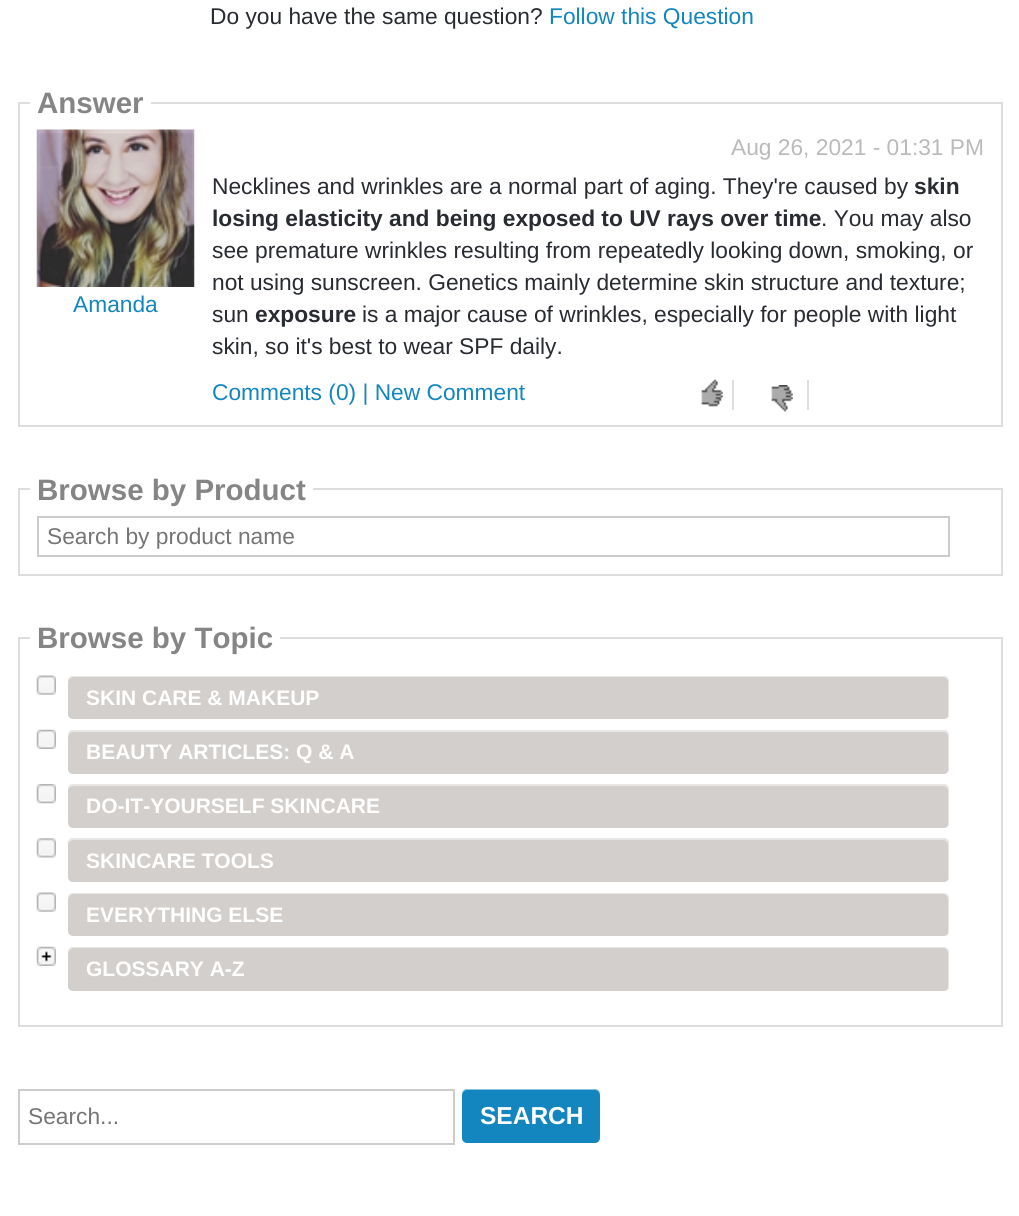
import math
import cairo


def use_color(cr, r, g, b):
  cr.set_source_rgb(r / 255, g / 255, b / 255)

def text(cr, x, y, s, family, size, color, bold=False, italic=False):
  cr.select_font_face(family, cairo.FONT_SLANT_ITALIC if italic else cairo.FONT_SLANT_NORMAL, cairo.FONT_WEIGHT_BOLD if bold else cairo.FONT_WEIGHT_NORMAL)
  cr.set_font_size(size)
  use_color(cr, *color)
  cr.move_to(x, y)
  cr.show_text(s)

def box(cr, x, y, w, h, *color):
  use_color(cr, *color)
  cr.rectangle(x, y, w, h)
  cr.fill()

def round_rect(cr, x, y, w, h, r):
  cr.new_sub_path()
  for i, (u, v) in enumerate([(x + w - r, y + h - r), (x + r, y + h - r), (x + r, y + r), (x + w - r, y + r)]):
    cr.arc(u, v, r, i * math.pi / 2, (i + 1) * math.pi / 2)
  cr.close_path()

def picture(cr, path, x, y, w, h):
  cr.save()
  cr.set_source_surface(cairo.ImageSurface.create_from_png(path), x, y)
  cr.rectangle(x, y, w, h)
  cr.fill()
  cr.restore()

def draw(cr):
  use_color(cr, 255, 255, 255)
  cr.paint()
  cr.rectangle(19, 103, 983, 323)
  use_color(cr, 221, 221, 221)
  cr.stroke()
  box(cr, 30, 102, 121, 2, 255, 255, 255)
  picture(cr, "img_01.png", 36, 129, 159, 158)
  box(cr, 732, 380, 2, 30, 222, 222, 222)
  picture(cr, "img_02.png", 701, 379, 22, 28)
  box(cr, 807, 380, 2, 30, 222, 222, 222)
  picture(cr, "img_03.png", 771, 385, 22, 27)
  cr.rectangle(19, 489, 983, 86)
  use_color(cr, 221, 221, 221)
  cr.stroke()
  box(cr, 30, 488, 283, 2, 255, 255, 255)
  cr.rectangle(38, 517, 911, 39)
  use_color(cr, 204, 204, 204)
  cr.stroke()
  cr.rectangle(19, 638, 983, 388)
  use_color(cr, 221, 221, 221)
  cr.stroke()
  box(cr, 30, 637, 250, 2, 255, 255, 255)
  picture(cr, "img_04.png", 36, 675, 20, 20)
  use_color(cr, 211, 207, 204)
  round_rect(cr, 68, 676, 881, 43, 5)
  cr.fill()
  cr.set_source_rgba(1, 1, 1, 0.5)
  cr.new_path()
  cr.move_to(74, 677)
  cr.line_to(943, 677)
  cr.curve_to(946, 677, 948, 680, 948, 682)
  cr.line_to(948, 717)
  cr.curve_to(949, 716, 949, 715, 949, 714)
  cr.line_to(949, 681)
  cr.curve_to(949, 678, 947, 676, 944, 676)
  cr.line_to(73, 676)
  cr.curve_to(70, 676, 68, 678, 68, 681)
  cr.line_to(68, 682)
  cr.curve_to(68, 680, 71, 677, 74, 677)
  cr.close_path()
  cr.fill()
  picture(cr, "img_05.png", 36, 729, 20, 20)
  use_color(cr, 211, 207, 204)
  round_rect(cr, 68, 730, 881, 44, 5)
  cr.fill()
  cr.set_source_rgba(1, 1, 1, 0.5)
  cr.new_path()
  cr.move_to(74, 732)
  cr.line_to(943, 732)
  cr.curve_to(946, 732, 948, 734, 948, 737)
  cr.line_to(948, 770)
  cr.line_to(947, 773)
  cr.curve_to(948, 772, 949, 770, 949, 769)
  cr.line_to(949, 735)
  cr.curve_to(949, 732, 947, 730, 944, 730)
  cr.line_to(73, 730)
  cr.curve_to(70, 730, 68, 732, 68, 735)
  cr.line_to(68, 737)
  cr.curve_to(68, 734, 71, 732, 74, 732)
  cr.close_path()
  cr.fill()
  picture(cr, "img_06.png", 36, 784, 20, 20)
  use_color(cr, 211, 207, 204)
  round_rect(cr, 68, 784, 881, 44, 5)
  cr.fill()
  cr.set_source_rgba(1, 1, 1, 0.5)
  cr.new_path()
  cr.move_to(74, 786)
  cr.line_to(943, 786)
  cr.curve_to(946, 786, 948, 788, 948, 791)
  cr.line_to(948, 824)
  cr.line_to(948, 827)
  cr.curve_to(948, 826, 949, 824, 949, 823)
  cr.line_to(949, 789)
  cr.curve_to(949, 786, 947, 784, 944, 784)
  cr.line_to(73, 784)
  cr.curve_to(70, 784, 68, 786, 68, 789)
  cr.line_to(68, 791)
  cr.curve_to(68, 788, 71, 786, 74, 786)
  cr.close_path()
  cr.fill()
  picture(cr, "img_07.png", 36, 838, 20, 20)
  use_color(cr, 211, 207, 204)
  round_rect(cr, 68, 838, 881, 44, 5)
  cr.fill()
  cr.set_source_rgba(1, 1, 1, 0.5)
  cr.new_path()
  cr.move_to(74, 840)
  cr.line_to(943, 840)
  cr.curve_to(946, 840, 948, 842, 948, 845)
  cr.line_to(948, 878)
  cr.line_to(948, 881)
  cr.curve_to(948, 880, 949, 878, 949, 877)
  cr.line_to(949, 843)
  cr.curve_to(949, 840, 947, 838, 944, 838)
  cr.line_to(73, 838)
  cr.curve_to(70, 838, 68, 840, 68, 843)
  cr.line_to(68, 845)
  cr.curve_to(68, 842, 71, 840, 74, 840)
  cr.close_path()
  cr.fill()
  picture(cr, "img_04.png", 36, 892, 20, 20)
  use_color(cr, 211, 207, 204)
  round_rect(cr, 68, 893, 881, 43, 5)
  cr.fill()
  cr.set_source_rgba(1, 1, 1, 0.5)
  cr.new_path()
  cr.move_to(74, 894)
  cr.line_to(943, 894)
  cr.curve_to(946, 894, 948, 897, 948, 900)
  cr.line_to(948, 934)
  cr.curve_to(949, 933, 949, 932, 949, 931)
  cr.line_to(949, 898)
  cr.curve_to(949, 895, 947, 893, 944, 893)
  cr.line_to(73, 893)
  cr.curve_to(70, 893, 68, 895, 68, 898)
  cr.line_to(68, 900)
  cr.curve_to(68, 897, 71, 894, 74, 894)
  cr.close_path()
  cr.fill()
  picture(cr, "img_08.png", 36, 946, 20, 20)
  use_color(cr, 211, 207, 204)
  round_rect(cr, 68, 947, 881, 44, 5)
  cr.fill()
  cr.set_source_rgba(1, 1, 1, 0.5)
  cr.new_path()
  cr.move_to(74, 948)
  cr.line_to(943, 948)
  cr.curve_to(946, 948, 948, 951, 948, 954)
  cr.line_to(948, 987)
  cr.line_to(947, 990)
  cr.curve_to(948, 989, 949, 987, 949, 986)
  cr.line_to(949, 952)
  cr.curve_to(949, 949, 947, 947, 944, 947)
  cr.line_to(73, 947)
  cr.curve_to(70, 947, 68, 949, 68, 952)
  cr.line_to(68, 954)
  cr.curve_to(68, 951, 71, 948, 74, 948)
  cr.close_path()
  cr.fill()
  cr.rectangle(19, 1090, 435, 54)
  use_color(cr, 204, 204, 204)
  cr.stroke()
  use_color(cr, 19, 134, 191)
  round_rect(cr, 462, 1089, 138, 54, 5)
  cr.fill()
  cr.set_source_rgba(1, 1, 1, 0.5)
  cr.new_path()
  cr.move_to(467, 1090)
  cr.line_to(595, 1090)
  cr.curve_to(598, 1090, 600, 1093, 600, 1096)
  cr.line_to(600, 1094)
  cr.curve_to(600, 1091, 598, 1089, 595, 1089)
  cr.line_to(467, 1089)
  cr.curve_to(464, 1089, 462, 1091, 462, 1094)
  cr.line_to(462, 1096)
  cr.curve_to(462, 1093, 464, 1090, 467, 1090)
  cr.close_path()
  cr.fill()
  text(cr, 210, 24, "Do you have the same question?", "Liberation Sans", 22.75, (40, 43, 48))
  text(cr, 549, 24, "Follow this Question", "Liberation Sans", 22.75, (19, 134, 191))
  text(cr, 37, 113, "Answer", "Liberation Sans", 29.5, (133, 133, 133), bold=True)
  text(cr, 73, 312, "Amanda", "Liberation Sans", 22.75, (19, 134, 191))
  text(cr, 731, 155, "Aug 26, 2021 - 01:31 PM", "Liberation Sans", 22.75, (186, 186, 186))
  text(cr, 212, 194, "Necklines and wrinkles are a normal part of aging. They're caused by", "Liberation Sans", 22.75, (40, 43, 48))
  text(cr, 914, 194, "skin", "Liberation Sans", 22.75, (40, 43, 48), bold=True)
  text(cr, 212, 226, "losing elasticity and being exposed to UV rays over time", "Liberation Sans", 22.75, (40, 43, 48), bold=True)
  text(cr, 821, 226, ". You may also", "Liberation Sans", 22.75, (40, 43, 48))
  text(cr, 212, 258, "see premature wrinkles resulting from repeatedly looking down, smoking, or", "Liberation Sans", 22.75, (40, 43, 48))
  text(cr, 212, 290, "not using sunscreen. Genetics mainly determine skin structure and texture;", "Liberation Sans", 22.75, (40, 43, 48))
  text(cr, 212, 322, "sun", "Liberation Sans", 22.75, (40, 43, 48))
  text(cr, 255, 322, "exposure", "Liberation Sans", 22.75, (40, 43, 48), bold=True)
  text(cr, 362, 322, "is a major cause of wrinkles, especially for people with light", "Liberation Sans", 22.75, (40, 43, 48))
  text(cr, 212, 354, "skin, so it's best to wear SPF daily.", "Liberation Sans", 22.75, (40, 43, 48))
  text(cr, 212, 400, "Comments (0) | New Comment", "Liberation Sans", 22.75, (19, 134, 191))
  text(cr, 37, 500, "Browse by Product", "Liberation Sans", 29.5, (133, 133, 133), bold=True)
  text(cr, 47, 544, "Search by product name", "Liberation Sans", 22.75, (117, 117, 117))
  text(cr, 37, 648, "Browse by Topic", "Liberation Sans", 29.5, (133, 133, 133), bold=True)
  text(cr, 86, 705, "SKIN CARE & MAKEUP", "Liberation Sans", 21, (255, 255, 255), bold=True)
  text(cr, 86, 759, "BEAUTY ARTICLES: Q & A", "Liberation Sans", 21, (255, 255, 255), bold=True)
  text(cr, 86, 813, "DO-IT-YOURSELF SKINCARE", "Liberation Sans", 21, (255, 255, 255), bold=True)
  text(cr, 86, 868, "SKINCARE TOOLS", "Liberation Sans", 21, (255, 255, 255), bold=True)
  text(cr, 86, 922, "EVERYTHING ELSE", "Liberation Sans", 21, (255, 255, 255), bold=True)
  text(cr, 86, 976, "GLOSSARY A-Z", "Liberation Sans", 21, (255, 255, 255), bold=True)
  text(cr, 28, 1124, "Search...", "Liberation Sans", 22.75, (117, 117, 117))
  text(cr, 480, 1124, "SEARCH", "Liberation Sans", 24.5, (255, 255, 255), bold=True)


surface = cairo.ImageSurface(cairo.FORMAT_RGB24, 1019, 1216)
cr = cairo.Context(surface)
options = cairo.FontOptions()
options.set_hint_metrics(cairo.HINT_METRICS_OFF)
options.set_hint_style(cairo.HINT_STYLE_NONE)
cr.set_font_options(options)
cr.set_miter_limit(4)
draw(cr)
surface.write_to_png("out.png")
